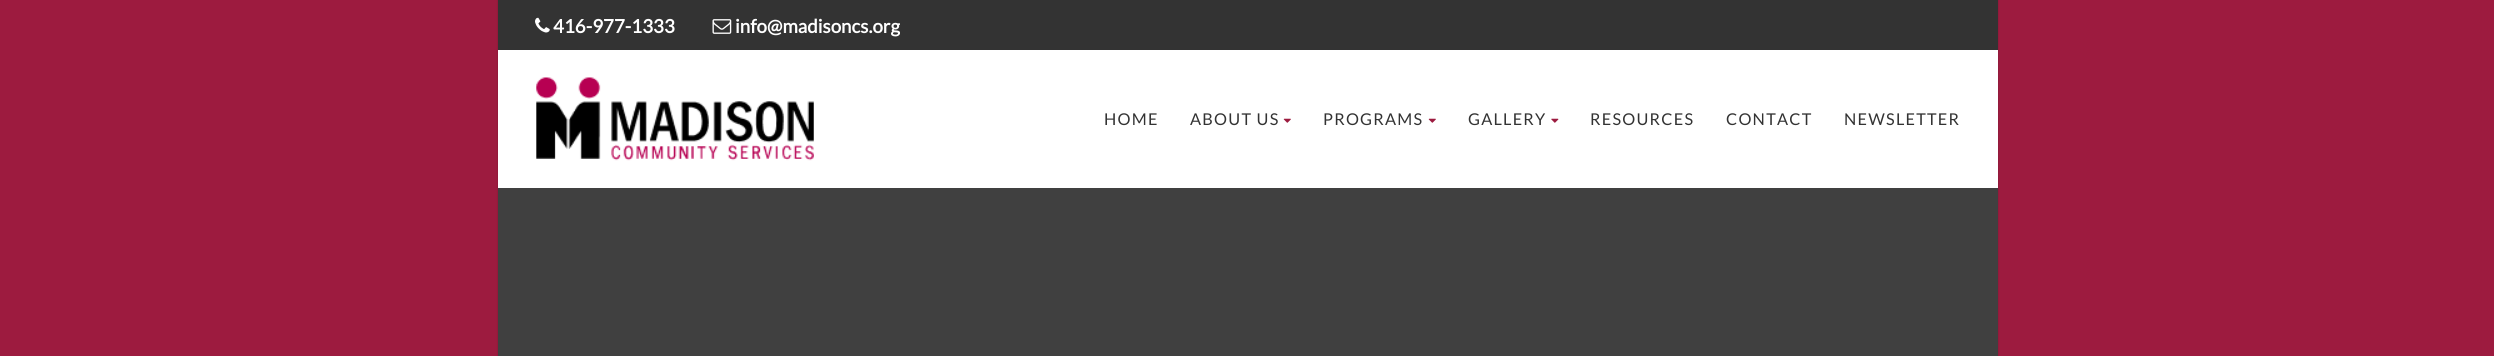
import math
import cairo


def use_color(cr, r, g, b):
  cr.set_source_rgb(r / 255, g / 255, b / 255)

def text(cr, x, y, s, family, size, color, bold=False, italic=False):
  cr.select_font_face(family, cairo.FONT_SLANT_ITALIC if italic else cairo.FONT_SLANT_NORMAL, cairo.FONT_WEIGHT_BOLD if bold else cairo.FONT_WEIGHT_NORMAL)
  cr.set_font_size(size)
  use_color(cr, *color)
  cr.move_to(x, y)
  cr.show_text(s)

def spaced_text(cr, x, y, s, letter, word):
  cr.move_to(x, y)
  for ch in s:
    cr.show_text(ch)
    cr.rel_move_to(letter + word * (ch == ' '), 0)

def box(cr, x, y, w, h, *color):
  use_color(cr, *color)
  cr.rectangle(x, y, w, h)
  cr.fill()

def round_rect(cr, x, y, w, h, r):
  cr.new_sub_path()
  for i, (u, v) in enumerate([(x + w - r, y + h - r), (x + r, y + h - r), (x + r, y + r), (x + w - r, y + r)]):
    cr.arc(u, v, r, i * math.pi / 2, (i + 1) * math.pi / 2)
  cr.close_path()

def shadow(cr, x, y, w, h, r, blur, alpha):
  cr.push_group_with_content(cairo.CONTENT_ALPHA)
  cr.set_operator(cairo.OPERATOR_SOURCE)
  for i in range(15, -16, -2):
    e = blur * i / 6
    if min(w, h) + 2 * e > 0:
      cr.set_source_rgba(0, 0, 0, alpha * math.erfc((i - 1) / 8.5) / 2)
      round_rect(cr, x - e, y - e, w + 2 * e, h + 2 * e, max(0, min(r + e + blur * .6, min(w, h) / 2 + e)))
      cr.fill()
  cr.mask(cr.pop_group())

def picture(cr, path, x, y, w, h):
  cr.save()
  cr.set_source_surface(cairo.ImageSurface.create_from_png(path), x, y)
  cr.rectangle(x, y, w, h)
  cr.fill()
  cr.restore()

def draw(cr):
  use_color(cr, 157, 27, 63)
  cr.paint()
  use_color(cr, 0, 0, 0)
  shadow(cr, 498, 0, 1500, 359, 0, 1, 0.2)
  box(cr, 498, 50, 1500, 138, 255, 255, 255)
  box(cr, 498, 0, 1500, 50, 51, 51, 51)
  picture(cr, "img_01.png", 535, 17, 15, 16)
  picture(cr, "img_02.png", 712, 19, 20, 15)
  picture(cr, "img_03.png", 536, 77, 278, 84)
  picture(cr, "img_04.png", 1283, 118, 8, 5)
  picture(cr, "img_04.png", 1428, 118, 8, 5)
  picture(cr, "img_05.png", 1551, 118, 8, 5)
  box(cr, 498, 188, 1500, 168, 64, 64, 64)
  text(cr, 553, 33, "416-977-1333", "Lato", 18.75, (255, 255, 255), bold=True)
  text(cr, 735, 33, "info@madisoncs.org", "Lato", 18.75, (255, 255, 255), bold=True)
  cr.select_font_face("Lato")
  cr.set_font_size(16.25)
  use_color(cr, 51, 51, 51)
  spaced_text(cr, 1104, 125, "HOME", 1.25, 0)
  spaced_text(cr, 1190, 125, "ABOUT US", 1.25, 0)
  spaced_text(cr, 1323, 125, "PROGRAMS", 1.25, 0)
  spaced_text(cr, 1468, 125, "GALLERY", 1.25, 0)
  spaced_text(cr, 1590, 125, "RESOURCES", 1.25, 0)
  spaced_text(cr, 1726, 125, "CONTACT", 1.25, 0)
  spaced_text(cr, 1844, 125, "NEWSLETTER", 1.25, 0)


surface = cairo.ImageSurface(cairo.FORMAT_RGB24, 2494, 356)
cr = cairo.Context(surface)
options = cairo.FontOptions()
options.set_hint_metrics(cairo.HINT_METRICS_OFF)
options.set_hint_style(cairo.HINT_STYLE_NONE)
cr.set_font_options(options)
cr.set_miter_limit(4)
draw(cr)
surface.write_to_png("out.png")
